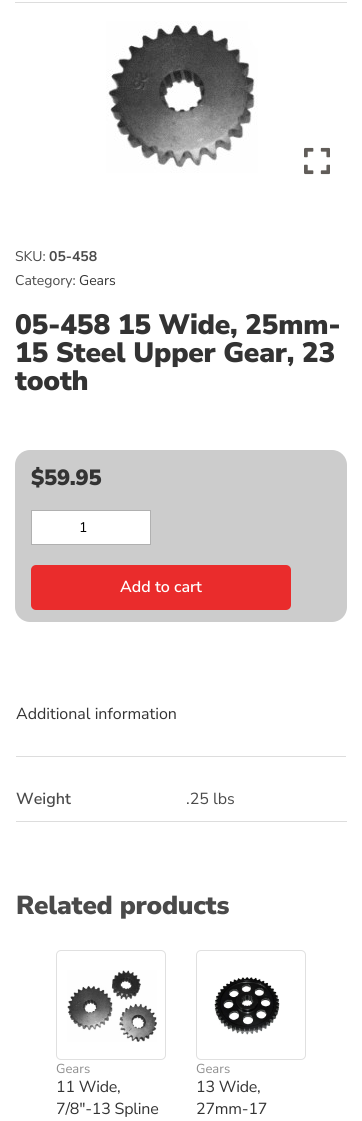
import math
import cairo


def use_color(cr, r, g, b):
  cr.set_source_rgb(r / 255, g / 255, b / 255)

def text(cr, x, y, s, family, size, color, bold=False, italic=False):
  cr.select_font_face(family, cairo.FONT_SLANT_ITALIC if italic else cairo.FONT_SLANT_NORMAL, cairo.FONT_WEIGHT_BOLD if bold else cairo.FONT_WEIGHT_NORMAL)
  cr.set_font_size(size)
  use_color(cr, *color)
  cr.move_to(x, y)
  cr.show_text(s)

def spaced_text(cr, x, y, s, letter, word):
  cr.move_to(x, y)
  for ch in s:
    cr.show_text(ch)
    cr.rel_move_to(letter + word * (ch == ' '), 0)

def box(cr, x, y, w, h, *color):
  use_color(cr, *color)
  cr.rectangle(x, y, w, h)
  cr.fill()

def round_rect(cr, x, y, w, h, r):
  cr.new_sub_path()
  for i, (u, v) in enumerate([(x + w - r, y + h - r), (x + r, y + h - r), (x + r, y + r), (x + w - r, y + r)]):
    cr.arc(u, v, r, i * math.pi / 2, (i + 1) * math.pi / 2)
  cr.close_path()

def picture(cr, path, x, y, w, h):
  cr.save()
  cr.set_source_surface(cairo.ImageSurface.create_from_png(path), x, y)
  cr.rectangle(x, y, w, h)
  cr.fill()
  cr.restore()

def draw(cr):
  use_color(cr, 255, 255, 255)
  cr.paint()
  box(cr, 15, 2, 332, 1, 221, 221, 221)
  picture(cr, "img_01.png", 106, 21, 152, 152)
  picture(cr, "img_02.png", 304, 147, 26, 28)
  use_color(cr, 204, 204, 204)
  round_rect(cr, 15, 450, 332, 172, 15)
  cr.fill()
  use_color(cr, 255, 255, 255)
  cr.rectangle(31.5, 510.5, 119, 34)
  cr.fill_preserve()
  use_color(cr, 176, 176, 176)
  cr.set_line_width(1)
  cr.stroke()
  use_color(cr, 234, 44, 44)
  round_rect(cr, 31, 565, 260, 45, 5)
  cr.fill()
  box(cr, 16, 756, 330, 1, 221, 221, 221)
  box(cr, 16, 821, 331, 1, 221, 221, 221)
  round_rect(cr, 56.5, 950.5, 109, 109, 4.5)
  use_color(cr, 224, 224, 224)
  cr.stroke()
  picture(cr, "img_03.png", 67, 970, 90, 72)
  round_rect(cr, 196.5, 950.5, 109, 109, 4.5)
  cr.stroke()
  picture(cr, "img_04.png", 214, 977, 66, 58)
  text(cr, 15, 261, "SKU:", "Nunito Sans", 14, (74, 74, 74))
  text(cr, 49, 261, "05-458", "Nunito Sans", 14, (74, 74, 74), bold=True)
  text(cr, 15, 285, "Category:", "Nunito Sans", 14, (74, 74, 74))
  text(cr, 79, 285, "Gears", "Nunito Sans", 14, (51, 51, 51))
  cr.select_font_face("Nunito Sans Black")
  cr.set_font_size(28)
  spaced_text(cr, 15, 334, "05-458 15 Wide, 25mm-", -0.25, 0)
  spaced_text(cr, 15, 362, "15 Steel Upper Gear, 23", -0.25, 0)
  spaced_text(cr, 15, 390, "tooth", -0.25, 0)
  cr.set_font_size(22)
  spaced_text(cr, 31, 485, "$59.95", -0.25, 0)
  text(cr, 79, 532, "1", "Nunito Sans", 14, (0, 0, 0))
  text(cr, 120, 592, "Add to cart", "Nunito Sans SemiBold", 16, (255, 255, 255))
  text(cr, 16, 719, "Additional information", "Nunito Sans", 16, (51, 51, 51))
  text(cr, 16, 804, "Weight", "Nunito Sans SemiBold", 16, (74, 74, 74))
  text(cr, 186, 804, ".25 lbs", "Nunito Sans", 16, (74, 74, 74))
  cr.select_font_face("Nunito Sans Black")
  cr.set_font_size(26)
  spaced_text(cr, 16, 914, "Related products", -0.25, 0)
  text(cr, 56, 1073, "Gears", "Nunito Sans", 13, (142, 142, 142))
  cr.set_font_size(16)
  use_color(cr, 51, 51, 51)
  spaced_text(cr, 56, 1092, "11 Wide,", -0.2, 0)
  spaced_text(cr, 56, 1114, "7/8″-13 Spline", -0.2, 0)
  text(cr, 196, 1073, "Gears", "Nunito Sans", 13, (142, 142, 142))
  cr.set_font_size(16)
  use_color(cr, 51, 51, 51)
  spaced_text(cr, 196, 1092, "13 Wide,", -0.2, 0)
  spaced_text(cr, 196, 1114, "27mm-17", -0.2, 0)


surface = cairo.ImageSurface(cairo.FORMAT_RGB24, 362, 1121)
cr = cairo.Context(surface)
options = cairo.FontOptions()
options.set_hint_metrics(cairo.HINT_METRICS_OFF)
options.set_hint_style(cairo.HINT_STYLE_NONE)
cr.set_font_options(options)
cr.set_miter_limit(4)
draw(cr)
surface.write_to_png("out.png")
